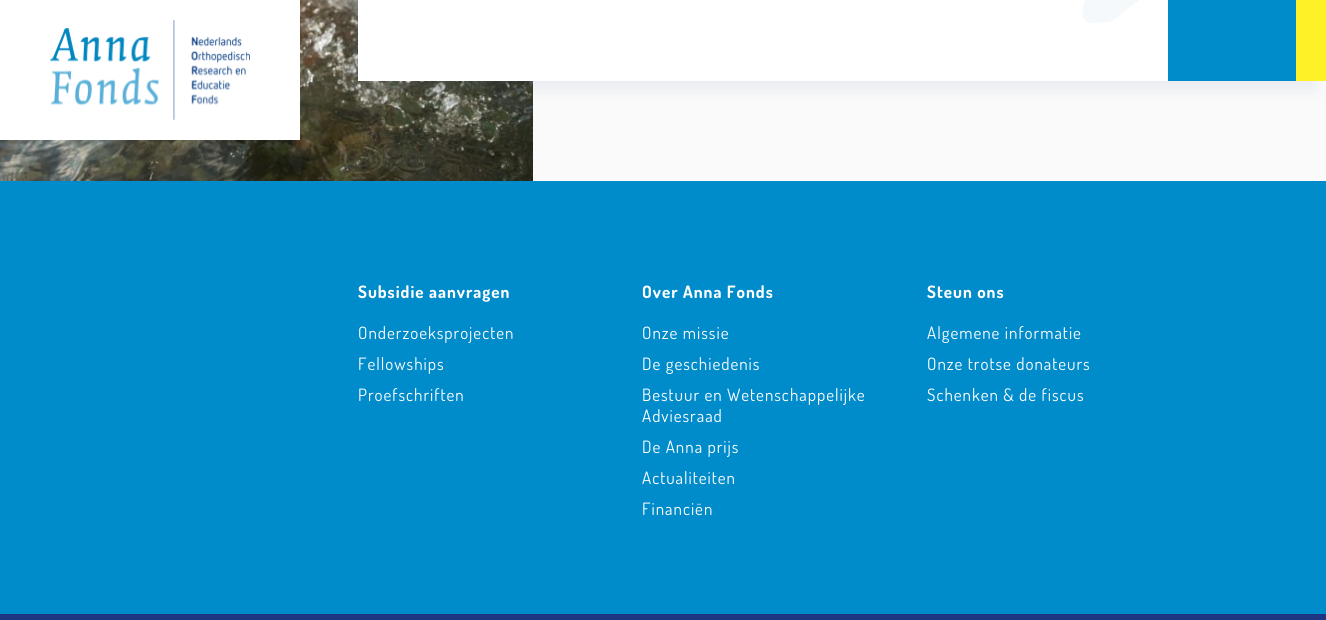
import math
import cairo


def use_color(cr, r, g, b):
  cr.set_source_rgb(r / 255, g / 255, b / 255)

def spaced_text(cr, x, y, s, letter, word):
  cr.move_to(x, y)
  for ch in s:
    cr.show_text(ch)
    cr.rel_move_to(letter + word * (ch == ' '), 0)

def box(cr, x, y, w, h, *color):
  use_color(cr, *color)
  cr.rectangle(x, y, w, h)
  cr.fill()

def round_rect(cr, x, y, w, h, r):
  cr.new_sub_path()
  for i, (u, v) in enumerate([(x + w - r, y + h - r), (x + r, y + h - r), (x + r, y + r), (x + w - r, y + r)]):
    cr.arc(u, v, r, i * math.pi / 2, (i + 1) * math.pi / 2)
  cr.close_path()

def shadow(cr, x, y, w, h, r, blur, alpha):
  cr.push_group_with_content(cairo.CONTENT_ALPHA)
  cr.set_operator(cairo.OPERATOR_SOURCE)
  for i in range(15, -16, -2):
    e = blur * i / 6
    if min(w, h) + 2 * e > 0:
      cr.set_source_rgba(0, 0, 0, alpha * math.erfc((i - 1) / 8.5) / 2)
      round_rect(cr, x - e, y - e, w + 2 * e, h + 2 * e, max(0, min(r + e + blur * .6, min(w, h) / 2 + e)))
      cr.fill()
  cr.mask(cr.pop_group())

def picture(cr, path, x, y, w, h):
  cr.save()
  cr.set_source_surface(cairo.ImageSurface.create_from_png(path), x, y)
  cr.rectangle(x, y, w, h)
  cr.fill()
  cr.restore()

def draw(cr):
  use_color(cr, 250, 250, 250)
  cr.paint()
  picture(cr, "img_01.png", 0, 0, 533, 181)
  use_color(cr, 30, 53, 130)
  shadow(cr, 348, -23, 968, 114, 0, 7.5, 0.07)
  box(cr, 358, 0, 810, 81, 255, 255, 255)
  picture(cr, "img_02.png", 1082, 0, 57, 23)
  box(cr, 1168, 0, 128, 81, 0, 139, 203)
  box(cr, 1296, 0, 30, 81, 255, 241, 39)
  box(cr, 0, 0, 300, 140, 255, 255, 255)
  picture(cr, "img_03.png", 50, 20, 200, 100)
  box(cr, 0, 181, 1326, 433, 0, 139, 203)
  box(cr, 0, 614, 1326, 6, 30, 53, 130)
  cr.select_font_face("Dosis", cairo.FONT_SLANT_NORMAL, cairo.FONT_WEIGHT_BOLD)
  cr.set_font_size(17)
  use_color(cr, 255, 255, 255)
  spaced_text(cr, 358, 298, "Subsidie aanvragen", 1, 0)
  cr.select_font_face("Dosis")
  spaced_text(cr, 358, 339, "Onderzoeksprojecten", 1, 0)
  spaced_text(cr, 358, 370, "Fellowships", 1, 0)
  spaced_text(cr, 358, 401, "Proefschriften", 1, 0)
  cr.select_font_face("Dosis", cairo.FONT_SLANT_NORMAL, cairo.FONT_WEIGHT_BOLD)
  spaced_text(cr, 642, 298, "Over Anna Fonds", 1, 0)
  cr.select_font_face("Dosis")
  spaced_text(cr, 642, 339, "Onze missie", 1, 0)
  spaced_text(cr, 642, 370, "De geschiedenis", 1, 0)
  spaced_text(cr, 642, 401, "Bestuur en Wetenschappelijke", 1, 0)
  spaced_text(cr, 642, 422, "Adviesraad", 1, 0)
  spaced_text(cr, 642, 453, "De Anna prijs", 1, 0)
  spaced_text(cr, 642, 484, "Actualiteiten", 1, 0)
  spaced_text(cr, 642, 515, "Financiën", 1, 0)
  cr.select_font_face("Dosis", cairo.FONT_SLANT_NORMAL, cairo.FONT_WEIGHT_BOLD)
  spaced_text(cr, 927, 298, "Steun ons", 1, 0)
  cr.select_font_face("Dosis")
  spaced_text(cr, 927, 339, "Algemene informatie", 1, 0)
  spaced_text(cr, 927, 370, "Onze trotse donateurs", 1, 0)
  spaced_text(cr, 927, 401, "Schenken & de fiscus", 1, 0)


surface = cairo.ImageSurface(cairo.FORMAT_RGB24, 1326, 620)
cr = cairo.Context(surface)
options = cairo.FontOptions()
options.set_hint_metrics(cairo.HINT_METRICS_OFF)
options.set_hint_style(cairo.HINT_STYLE_NONE)
cr.set_font_options(options)
cr.set_miter_limit(4)
draw(cr)
surface.write_to_png("out.png")
